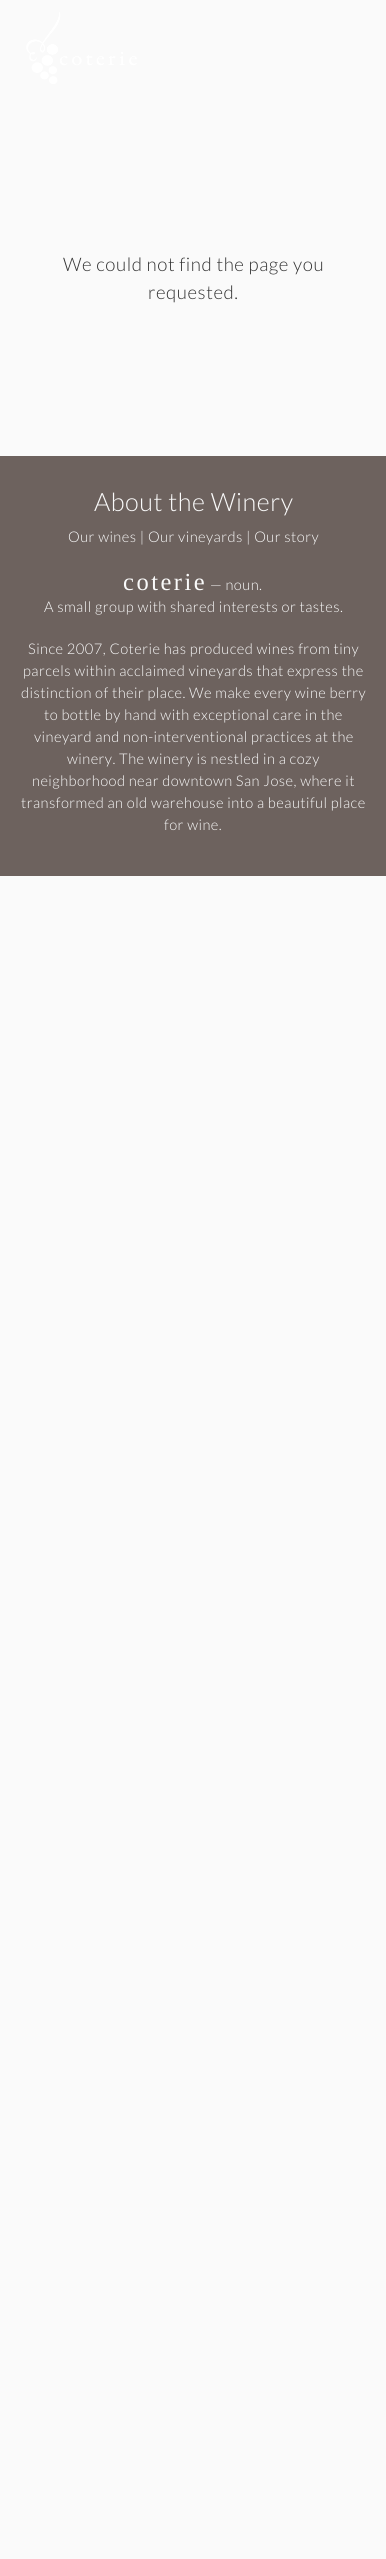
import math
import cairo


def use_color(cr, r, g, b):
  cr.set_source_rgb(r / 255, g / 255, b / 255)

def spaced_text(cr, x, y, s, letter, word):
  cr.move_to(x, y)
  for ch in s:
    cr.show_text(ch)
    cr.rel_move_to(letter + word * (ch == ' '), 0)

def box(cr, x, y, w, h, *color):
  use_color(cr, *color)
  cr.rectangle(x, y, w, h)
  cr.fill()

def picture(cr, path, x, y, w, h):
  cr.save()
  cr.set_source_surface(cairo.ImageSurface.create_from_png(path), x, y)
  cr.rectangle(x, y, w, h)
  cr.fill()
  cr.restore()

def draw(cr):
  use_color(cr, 250, 250, 250)
  cr.paint()
  picture(cr, "img_01.png", 26, 12, 111, 72)
  box(cr, 0, 456, 386, 420, 109, 98, 94)
  cr.select_font_face("Lato Light")
  cr.set_font_size(18.7)
  use_color(cr, 51, 51, 51)
  spaced_text(cr, 63, 271, "We could not find the page you", 0.55, 0)
  spaced_text(cr, 148, 299, "requested.", 0.55, 0)
  cr.set_font_size(25.25)
  use_color(cr, 250, 250, 250)
  spaced_text(cr, 94, 511, "About the Winery", 0.5, 0)
  cr.set_font_size(14.7)
  spaced_text(cr, 68, 542, "Our wines | Our vineyards | Our story", 0.45, 0)
  cr.select_font_face("Liberation Serif")
  cr.set_font_size(24.5)
  spaced_text(cr, 123, 590, "coterie", 2.5, 0)
  cr.select_font_face("Lato Light")
  cr.set_font_size(14.7)
  spaced_text(cr, 210, 590, "— noun.", 0.45, 0)
  spaced_text(cr, 44, 612, "A small group with shared interests or tastes.", 0.45, 0)
  spaced_text(cr, 28, 654, "Since 2007, Coterie has produced wines from tiny", 0.45, 0)
  spaced_text(cr, 23, 676, "parcels within acclaimed vineyards that express the", 0.45, 0)
  spaced_text(cr, 21, 698, "distinction of their place. We make every wine berry", 0.45, 0)
  spaced_text(cr, 44, 720, "to bottle by hand with exceptional care in the", 0.45, 0)
  spaced_text(cr, 34, 742, "vineyard and non-interventional practices at the", 0.45, 0)
  spaced_text(cr, 67, 764, "winery. The winery is nestled in a cozy", 0.45, 0)
  spaced_text(cr, 32, 786, "neighborhood near downtown San Jose, where it", 0.45, 0)
  spaced_text(cr, 21, 808, "transformed an old warehouse into a beautiful place", 0.45, 0)
  spaced_text(cr, 164, 830, "for wine.", 0.45, 0)


surface = cairo.ImageSurface(cairo.FORMAT_RGB24, 386, 2559)
cr = cairo.Context(surface)
options = cairo.FontOptions()
options.set_hint_metrics(cairo.HINT_METRICS_OFF)
options.set_hint_style(cairo.HINT_STYLE_NONE)
cr.set_font_options(options)
cr.set_miter_limit(4)
draw(cr)
surface.write_to_png("out.png")
